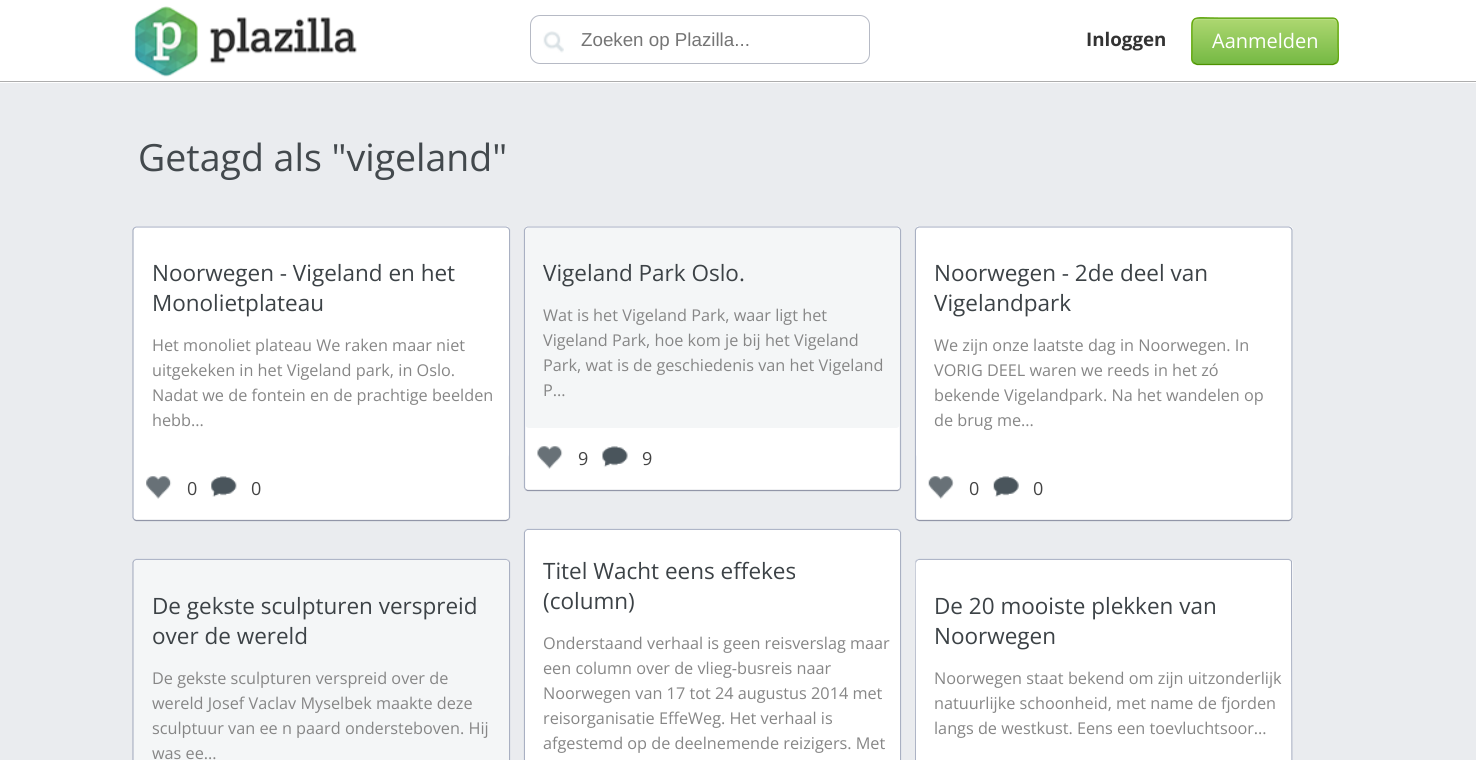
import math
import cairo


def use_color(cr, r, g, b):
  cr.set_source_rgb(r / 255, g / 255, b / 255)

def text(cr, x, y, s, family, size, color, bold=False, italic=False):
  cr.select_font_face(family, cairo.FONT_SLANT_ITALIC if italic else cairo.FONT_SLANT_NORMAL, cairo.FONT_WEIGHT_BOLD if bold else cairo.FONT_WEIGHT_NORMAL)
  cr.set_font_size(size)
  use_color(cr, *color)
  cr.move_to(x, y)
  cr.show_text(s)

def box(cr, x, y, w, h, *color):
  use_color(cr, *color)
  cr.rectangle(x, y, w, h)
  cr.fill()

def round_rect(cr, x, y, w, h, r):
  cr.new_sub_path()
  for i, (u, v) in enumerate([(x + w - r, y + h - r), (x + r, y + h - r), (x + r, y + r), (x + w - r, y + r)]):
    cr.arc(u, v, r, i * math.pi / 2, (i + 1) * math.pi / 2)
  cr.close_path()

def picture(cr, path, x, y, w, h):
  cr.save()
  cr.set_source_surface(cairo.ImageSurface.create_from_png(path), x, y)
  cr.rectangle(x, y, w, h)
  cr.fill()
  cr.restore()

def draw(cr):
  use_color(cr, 234, 236, 239)
  cr.paint()
  box(cr, 0, 0, 1476, 83, 255, 255, 255)
  box(cr, 0, 81, 1476, 1, 173, 173, 173)
  picture(cr, "img_01.png", 134, 6, 223, 71)
  round_rect(cr, 530.5, 15.5, 339, 48, 9.5)
  use_color(cr, 182, 186, 197)
  cr.set_line_width(1)
  cr.stroke()
  picture(cr, "img_02.png", 543, 31, 21, 22)
  cr.save()
  round_rect(cr, 1191, 18, 148, 47, 6)
  cr.clip()
  gradient = cairo.LinearGradient(1265, -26, 1265, 19)
  gradient.add_color_stop_rgba(0, 0.678, 0.843, 0.443, 1)
  gradient.add_color_stop_rgba(1, 0.459, 0.725, 0.263, 1)
  cr.set_source(gradient)
  cr.rectangle(1191, 18, 148, 1)
  cr.fill()
  gradient = cairo.LinearGradient(1265, 19, 1265, 64)
  gradient.add_color_stop_rgba(0, 0.678, 0.843, 0.443, 1)
  gradient.add_color_stop_rgba(1, 0.459, 0.725, 0.263, 1)
  cr.set_source(gradient)
  cr.rectangle(1191, 19, 148, 45)
  cr.fill()
  gradient = cairo.LinearGradient(1265, 64, 1265, 109)
  gradient.add_color_stop_rgba(0, 0.678, 0.843, 0.443, 1)
  gradient.add_color_stop_rgba(1, 0.459, 0.725, 0.263, 1)
  cr.set_source(gradient)
  cr.rectangle(1191, 64, 148, 1)
  cr.fill()
  cr.restore()
  cr.set_source_rgba(1, 1, 1, 0.15)
  cr.new_path()
  cr.move_to(1198, 20)
  cr.line_to(1332, 20)
  cr.curve_to(1335, 20, 1338, 22, 1338, 25)
  cr.line_to(1338, 24)
  cr.curve_to(1338, 21, 1336, 19, 1333, 19)
  cr.line_to(1198, 19)
  cr.curve_to(1196, 19, 1194, 20, 1194, 22)
  cr.curve_to(1195, 21, 1196, 20, 1198, 20)
  cr.close_path()
  cr.fill()
  cr.new_path()
  cr.move_to(1336.5, 62.5)
  cr.line_to(1333, 64.5)
  cr.line_to(1197, 64.5)
  cr.line_to(1193.5, 62.5)
  use_color(cr, 77, 146, 0)
  cr.set_line_width(1.2)
  cr.stroke()
  cr.new_path()
  cr.move_to(1193.5, 62.5)
  cr.curve_to(1191, 60, 1192, 56, 1192, 53)
  cr.line_to(1192, 41)
  cr.curve_to(1192, 13, 1189, 18, 1220, 18)
  cr.line_to(1332.5, 18)
  cr.curve_to(1339, 18, 1338, 25.5, 1338, 29.5)
  cr.line_to(1338, 47)
  cr.curve_to(1338, 50.5, 1339.5, 59.5, 1336.5, 62.5)
  use_color(cr, 98, 166, 10)
  cr.stroke()
  use_color(cr, 255, 255, 255)
  round_rect(cr, 133, 226, 377, 295, 4)
  cr.fill()
  cr.new_path()
  cr.move_to(134, 228)
  cr.line_to(136, 227)
  cr.line_to(506, 227)
  cr.line_to(508.5, 228)
  use_color(cr, 175, 182, 200)
  cr.stroke()
  cr.new_path()
  cr.move_to(508.5, 228)
  cr.line_to(509.5, 230)
  cr.line_to(509.5, 517.5)
  cr.line_to(508.5, 519.5)
  use_color(cr, 169, 176, 194)
  cr.stroke()
  cr.new_path()
  cr.move_to(508.5, 519.5)
  cr.line_to(506, 520.5)
  cr.line_to(136, 520.5)
  cr.line_to(134, 519.5)
  use_color(cr, 146, 150, 168)
  cr.stroke()
  cr.new_path()
  cr.move_to(134, 519.5)
  cr.line_to(133, 517.5)
  cr.line_to(133, 230)
  cr.line_to(134, 228)
  use_color(cr, 169, 176, 194)
  cr.stroke()
  use_color(cr, 255, 255, 255)
  round_rect(cr, 134, 228, 375, 230, 4)
  cr.fill()
  picture(cr, "img_03.png", 146, 476, 26, 23)
  picture(cr, "img_04.png", 211, 476, 26, 21)
  round_rect(cr, 524, 226, 377, 265, 4)
  cr.fill()
  cr.new_path()
  cr.move_to(525.5, 228)
  cr.line_to(527.5, 227)
  cr.line_to(897.5, 227)
  cr.line_to(899.5, 228)
  use_color(cr, 175, 182, 200)
  cr.stroke()
  cr.new_path()
  cr.move_to(899.5, 228)
  cr.line_to(900.5, 230)
  cr.line_to(900.5, 487.5)
  cr.line_to(899.5, 489.5)
  use_color(cr, 169, 176, 194)
  cr.stroke()
  cr.new_path()
  cr.move_to(899.5, 489.5)
  cr.line_to(897.5, 490.5)
  cr.line_to(527.5, 490.5)
  cr.line_to(525.5, 489.5)
  use_color(cr, 146, 150, 168)
  cr.stroke()
  cr.new_path()
  cr.move_to(525.5, 489.5)
  cr.line_to(524.5, 487.5)
  cr.line_to(524.5, 230)
  cr.line_to(525.5, 228)
  use_color(cr, 169, 176, 194)
  cr.stroke()
  use_color(cr, 244, 246, 247)
  round_rect(cr, 525, 228, 375, 200, 4)
  cr.fill()
  picture(cr, "img_05.png", 537, 446, 26, 23)
  picture(cr, "img_06.png", 602, 446, 26, 22)
  use_color(cr, 255, 255, 255)
  round_rect(cr, 915, 226, 378, 295, 4)
  cr.fill()
  cr.new_path()
  cr.move_to(916.5, 228)
  cr.line_to(919, 227)
  cr.line_to(1289, 227)
  cr.line_to(1291, 228)
  use_color(cr, 175, 182, 200)
  cr.stroke()
  cr.new_path()
  cr.move_to(1291, 228)
  cr.line_to(1292, 230)
  cr.line_to(1292, 517.5)
  cr.line_to(1291, 519.5)
  use_color(cr, 169, 176, 194)
  cr.stroke()
  cr.new_path()
  cr.move_to(1291, 519.5)
  cr.line_to(1289, 520.5)
  cr.line_to(919, 520.5)
  cr.line_to(916.5, 519.5)
  use_color(cr, 146, 150, 168)
  cr.stroke()
  cr.new_path()
  cr.move_to(916.5, 519.5)
  cr.line_to(915.5, 517.5)
  cr.line_to(915.5, 230)
  cr.line_to(916.5, 228)
  use_color(cr, 169, 176, 194)
  cr.stroke()
  use_color(cr, 255, 255, 255)
  round_rect(cr, 916, 228, 375, 230, 4)
  cr.fill()
  picture(cr, "img_07.png", 928, 476, 26, 23)
  picture(cr, "img_08.png", 993, 476, 26, 21)
  round_rect(cr, 133, 559, 377, 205, 4)
  cr.fill()
  cr.new_path()
  cr.move_to(134, 560.5)
  cr.line_to(136, 559.5)
  cr.line_to(506, 559.5)
  cr.line_to(508.5, 560.5)
  use_color(cr, 175, 182, 200)
  cr.stroke()
  cr.new_path()
  cr.move_to(508.5, 560.5)
  cr.line_to(509.5, 562.5)
  cr.line_to(509.5, 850)
  cr.line_to(508.5, 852)
  use_color(cr, 169, 176, 194)
  cr.stroke()
  cr.new_path()
  cr.move_to(134, 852)
  cr.line_to(133, 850)
  cr.line_to(133, 562.5)
  cr.line_to(134, 560.5)
  cr.stroke()
  use_color(cr, 244, 246, 247)
  round_rect(cr, 134, 560, 375, 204, 4)
  cr.fill()
  use_color(cr, 255, 255, 255)
  round_rect(cr, 524, 529, 377, 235, 4)
  cr.fill()
  cr.new_path()
  cr.move_to(525.5, 530.5)
  cr.line_to(527.5, 529.5)
  cr.line_to(897.5, 529.5)
  cr.line_to(899.5, 530.5)
  use_color(cr, 175, 182, 200)
  cr.stroke()
  cr.new_path()
  cr.move_to(899.5, 530.5)
  cr.line_to(900.5, 532.5)
  cr.line_to(900.5, 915)
  cr.line_to(899.5, 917)
  use_color(cr, 169, 176, 194)
  cr.stroke()
  cr.new_path()
  cr.move_to(525.5, 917)
  cr.line_to(524.5, 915)
  cr.line_to(524.5, 532.5)
  cr.line_to(525.5, 530.5)
  cr.stroke()
  use_color(cr, 255, 255, 255)
  round_rect(cr, 525, 530, 375, 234, 4)
  cr.fill()
  round_rect(cr, 915, 559, 378, 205, 4)
  cr.fill()
  cr.new_path()
  cr.move_to(916.5, 560.5)
  cr.line_to(919, 559.5)
  cr.line_to(1289, 559.5)
  cr.line_to(1291, 560.5)
  use_color(cr, 175, 182, 200)
  cr.stroke()
  cr.new_path()
  cr.move_to(1291, 560.5)
  cr.line_to(1291.5, 561.5)
  cr.line_to(1292, 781)
  cr.line_to(1292, 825)
  cr.line_to(1291, 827)
  use_color(cr, 169, 176, 194)
  cr.stroke()
  cr.new_path()
  cr.move_to(916.5, 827)
  cr.line_to(915.5, 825)
  cr.line_to(916, 561.5)
  cr.line_to(916.5, 560.5)
  cr.stroke()
  use_color(cr, 255, 255, 255)
  round_rect(cr, 916, 560, 375, 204, 4)
  cr.fill()
  text(cr, 581, 46, "Zoeken op Plazilla...", "Liberation Sans", 18.75, (117, 117, 117))
  text(cr, 1086, 46, "Inloggen", "Open Sans", 18.75, (51, 51, 51), bold=True)
  text(cr, 1212, 48, "Aanmelden", "Open Sans", 20, (255, 255, 255))
  text(cr, 138, 171, "Getagd als \"vigeland\"", "Open Sans", 37.5, (67, 73, 77))
  text(cr, 152, 281, "Noorwegen - Vigeland en het", "Open Sans", 22.5, (60, 66, 70))
  text(cr, 152, 311, "Monolietplateau", "Open Sans", 22.5, (60, 66, 70))
  text(cr, 152, 351, "Het monoliet plateau We raken maar niet", "Open Sans", 16.25, (134, 134, 134))
  text(cr, 152, 376, "uitgekeken in het Vigeland park, in Oslo.", "Open Sans", 16.25, (134, 134, 134))
  text(cr, 152, 401, "Nadat we de fontein en de prachtige beelden", "Open Sans", 16.25, (134, 134, 134))
  text(cr, 152, 426, "hebb...", "Open Sans", 16.25, (134, 134, 134))
  text(cr, 187, 495, "0", "Open Sans", 18, (68, 68, 68))
  text(cr, 251, 495, "0", "Open Sans", 18, (68, 68, 68))
  text(cr, 543, 281, "Vigeland Park Oslo.", "Open Sans", 22.5, (60, 66, 70))
  text(cr, 543, 321, "Wat is het Vigeland Park, waar ligt het", "Open Sans", 16.25, (134, 134, 134))
  text(cr, 543, 346, "Vigeland Park, hoe kom je bij het Vigeland", "Open Sans", 16.25, (134, 134, 134))
  text(cr, 543, 371, "Park, wat is de geschiedenis van het Vigeland", "Open Sans", 16.25, (134, 134, 134))
  text(cr, 543, 396, "P...", "Open Sans", 16.25, (134, 134, 134))
  text(cr, 578, 465, "9", "Open Sans", 18, (68, 68, 68))
  text(cr, 642, 465, "9", "Open Sans", 18, (68, 68, 68))
  text(cr, 934, 281, "Noorwegen - 2de deel van", "Open Sans", 22.5, (60, 66, 70))
  text(cr, 934, 311, "Vigelandpark", "Open Sans", 22.5, (60, 66, 70))
  text(cr, 934, 351, "We zijn onze laatste dag in Noorwegen. In", "Open Sans", 16.25, (134, 134, 134))
  text(cr, 934, 376, "VORIG DEEL waren we reeds in het zó", "Open Sans", 16.25, (134, 134, 134))
  text(cr, 934, 401, "bekende Vigelandpark. Na het wandelen op", "Open Sans", 16.25, (134, 134, 134))
  text(cr, 934, 426, "de brug me...", "Open Sans", 16.25, (134, 134, 134))
  text(cr, 969, 495, "0", "Open Sans", 18, (68, 68, 68))
  text(cr, 1033, 495, "0", "Open Sans", 18, (68, 68, 68))
  text(cr, 152, 614, "De gekste sculpturen verspreid", "Open Sans", 22.5, (60, 66, 70))
  text(cr, 152, 644, "over de wereld", "Open Sans", 22.5, (60, 66, 70))
  text(cr, 152, 684, "De gekste sculpturen verspreid over de", "Open Sans", 16.25, (134, 134, 134))
  text(cr, 152, 709, "wereld Josef Vaclav Myselbek maakte deze", "Open Sans", 16.25, (134, 134, 134))
  text(cr, 152, 734, "sculptuur van ee n paard ondersteboven. Hij", "Open Sans", 16.25, (134, 134, 134))
  text(cr, 152, 759, "was ee...", "Open Sans", 16.25, (134, 134, 134))
  text(cr, 543, 579, "Titel Wacht eens effekes", "Open Sans", 22.5, (60, 66, 70))
  text(cr, 543, 609, "(column)", "Open Sans", 22.5, (60, 66, 70))
  text(cr, 543, 649, "Onderstaand verhaal is geen reisverslag maar", "Open Sans", 16.25, (134, 134, 134))
  text(cr, 543, 674, "een column over de vlieg-busreis naar", "Open Sans", 16.25, (134, 134, 134))
  text(cr, 543, 699, "Noorwegen van 17 tot 24 augustus 2014 met", "Open Sans", 16.25, (134, 134, 134))
  text(cr, 543, 724, "reisorganisatie EffeWeg. Het verhaal is", "Open Sans", 16.25, (134, 134, 134))
  text(cr, 543, 749, "afgestemd op de deelnemende reizigers. Met", "Open Sans", 16.25, (134, 134, 134))
  text(cr, 934, 614, "De 20 mooiste plekken van", "Open Sans", 22.5, (60, 66, 70))
  text(cr, 934, 644, "Noorwegen", "Open Sans", 22.5, (60, 66, 70))
  text(cr, 934, 684, "Noorwegen staat bekend om zijn uitzonderlijk", "Open Sans", 16.25, (134, 134, 134))
  text(cr, 934, 709, "natuurlijke schoonheid, met name de fjorden", "Open Sans", 16.25, (134, 134, 134))
  text(cr, 934, 734, "langs de westkust. Eens een toevluchtsoor...", "Open Sans", 16.25, (134, 134, 134))


surface = cairo.ImageSurface(cairo.FORMAT_RGB24, 1476, 760)
cr = cairo.Context(surface)
options = cairo.FontOptions()
options.set_hint_metrics(cairo.HINT_METRICS_OFF)
options.set_hint_style(cairo.HINT_STYLE_NONE)
cr.set_font_options(options)
cr.set_miter_limit(4)
draw(cr)
surface.write_to_png("out.png")
